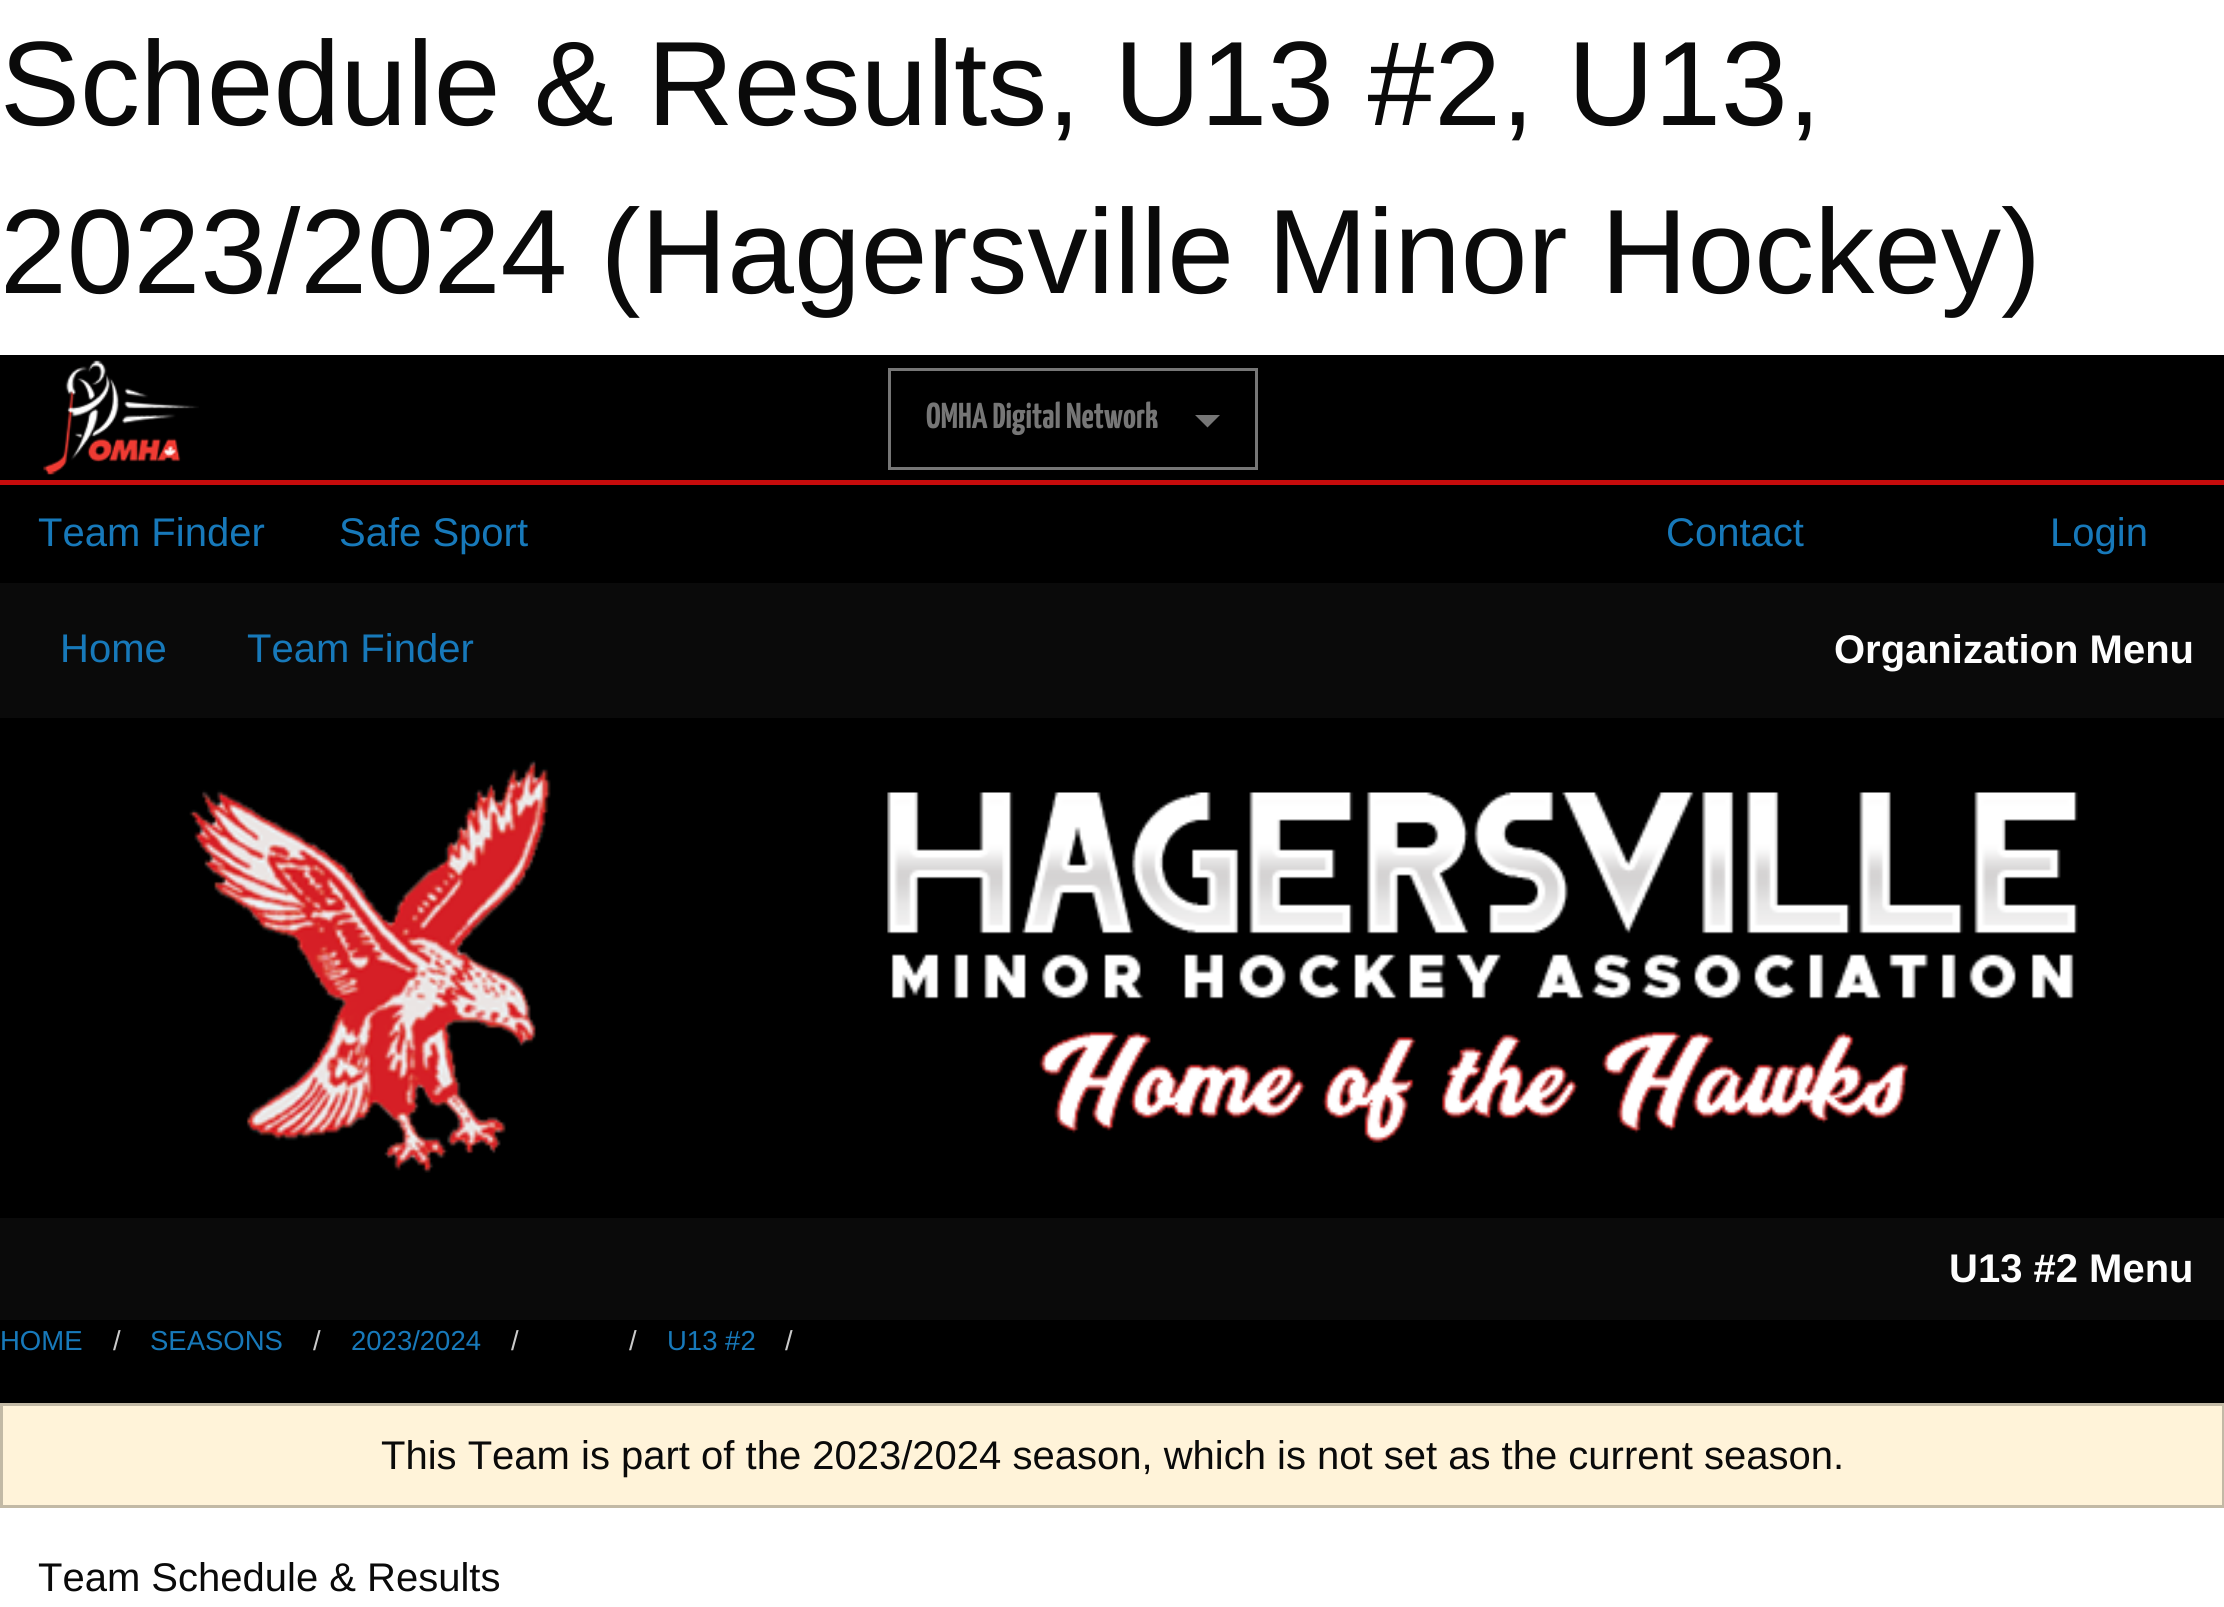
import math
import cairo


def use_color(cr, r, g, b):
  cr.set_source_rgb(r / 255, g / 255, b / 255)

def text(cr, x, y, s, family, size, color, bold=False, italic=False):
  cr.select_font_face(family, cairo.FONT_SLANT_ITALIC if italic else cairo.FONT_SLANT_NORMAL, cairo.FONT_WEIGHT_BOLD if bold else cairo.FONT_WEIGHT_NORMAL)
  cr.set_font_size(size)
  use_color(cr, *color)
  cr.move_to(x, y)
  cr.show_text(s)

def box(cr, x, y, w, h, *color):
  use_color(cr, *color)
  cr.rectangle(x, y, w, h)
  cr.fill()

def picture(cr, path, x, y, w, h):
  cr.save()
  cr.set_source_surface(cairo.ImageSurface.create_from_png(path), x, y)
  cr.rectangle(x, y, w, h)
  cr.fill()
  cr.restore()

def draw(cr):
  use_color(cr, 255, 255, 255)
  cr.paint()
  box(cr, 0, 355, 2224, 125, 0, 0, 0)
  box(cr, 0, 480, 2224, 5, 198, 12, 12)
  picture(cr, "img_01.png", 43, 360, 156, 115)
  cr.rectangle(889.5, 369.5, 367, 99)
  use_color(cr, 118, 118, 118)
  cr.set_line_width(3)
  cr.stroke()
  cr.new_path()
  cr.move_to(1195, 415)
  cr.line_to(1220, 415)
  cr.line_to(1207.5, 427.5)
  cr.close_path()
  cr.fill()
  box(cr, 0, 485, 2224, 918, 0, 0, 0)
  box(cr, 0, 583, 2224, 135, 10, 10, 10)
  picture(cr, "img_02.png", 189, 760, 362, 413)
  picture(cr, "img_03.png", 887, 792, 1191, 351)
  box(cr, 0, 1218, 2224, 102, 10, 10, 10)
  use_color(cr, 255, 243, 217)
  cr.rectangle(1.5, 1404.5, 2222, 102)
  cr.fill_preserve()
  use_color(cr, 194, 185, 165)
  cr.stroke()
  text(cr, 0, 125, "Schedule & Results, U13 #2, U13,", "Liberation Sans", 120, (10, 10, 10))
  text(cr, 0, 293, "2023/2024 (Hagersville Minor Hockey)", "Liberation Sans", 120, (10, 10, 10))
  text(cr, 926, 428, "OMHA Digital Network", "Yanone Kaffeesatz ExtraLight", 36, (118, 118, 118))
  text(cr, 38, 546, "Team Finder", "Liberation Sans", 40, (23, 121, 186))
  text(cr, 339, 546, "Safe Sport", "Liberation Sans", 40, (23, 121, 186))
  text(cr, 1666, 546, "Contact", "Liberation Sans", 40, (23, 121, 186))
  text(cr, 2050, 546, "Login", "Liberation Sans", 40, (23, 121, 186))
  text(cr, 60, 662, "Home", "Liberation Sans", 40, (23, 121, 186))
  text(cr, 247, 662, "Team Finder", "Liberation Sans", 40, (23, 121, 186))
  text(cr, 1834, 663, "Organization Menu", "Liberation Sans", 40, (254, 254, 254), bold=True)
  text(cr, 1949, 1282, "U13 #2 Menu", "Liberation Sans", 40, (254, 254, 254), bold=True)
  text(cr, 0, 1350, "HOME", "Liberation Sans", 27.5, (23, 121, 186))
  text(cr, 113, 1350, "/", "Liberation Sans", 27.5, (202, 202, 202))
  text(cr, 150, 1350, "SEASONS", "Liberation Sans", 27.5, (23, 121, 186))
  text(cr, 313, 1350, "/", "Liberation Sans", 27.5, (202, 202, 202))
  text(cr, 351, 1350, "2023/2024", "Liberation Sans", 27.5, (23, 121, 186))
  text(cr, 511, 1350, "/", "Liberation Sans", 27.5, (202, 202, 202))
  text(cr, 629, 1350, "/", "Liberation Sans", 27.5, (202, 202, 202))
  text(cr, 667, 1350, "U13 #2", "Liberation Sans", 27.5, (23, 121, 186))
  text(cr, 785, 1350, "/", "Liberation Sans", 27.5, (202, 202, 202))
  text(cr, 381, 1469, "This Team is part of the 2023/2024 season, which is not set as the current season.", "Liberation Sans", 40, (10, 10, 10))
  text(cr, 38, 1591, "Team Schedule & Results", "Liberation Sans", 40, (10, 10, 10))


surface = cairo.ImageSurface(cairo.FORMAT_RGB24, 2224, 1607)
cr = cairo.Context(surface)
options = cairo.FontOptions()
options.set_hint_metrics(cairo.HINT_METRICS_OFF)
options.set_hint_style(cairo.HINT_STYLE_NONE)
cr.set_font_options(options)
cr.set_miter_limit(4)
draw(cr)
surface.write_to_png("out.png")
